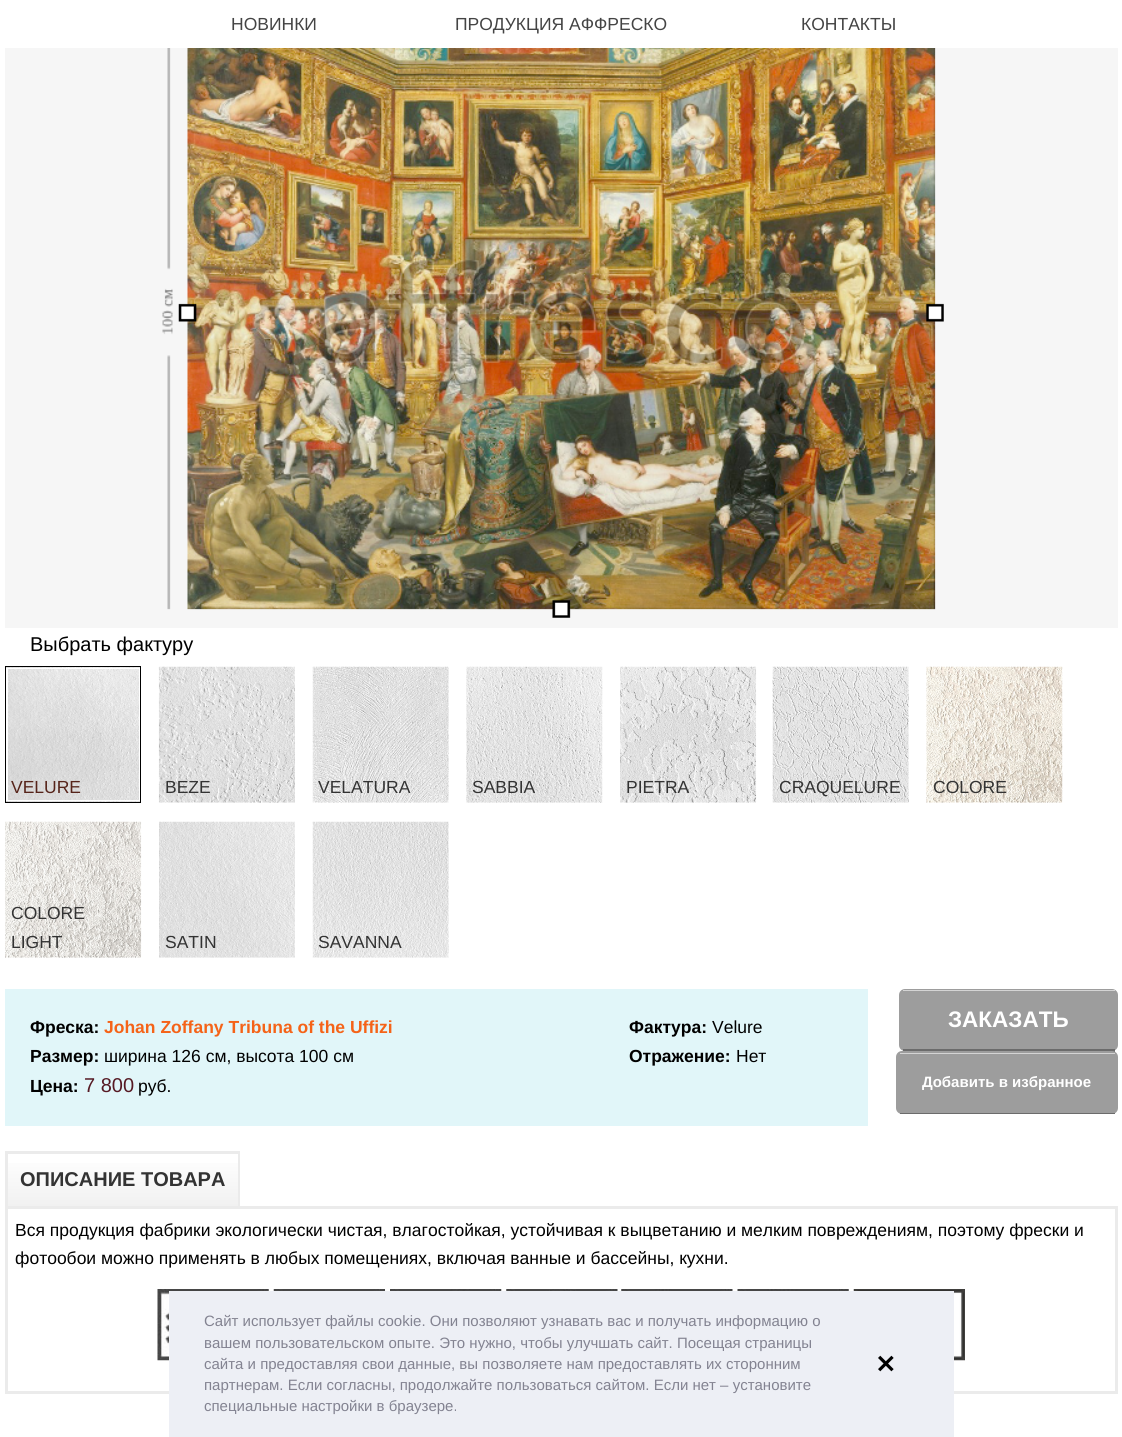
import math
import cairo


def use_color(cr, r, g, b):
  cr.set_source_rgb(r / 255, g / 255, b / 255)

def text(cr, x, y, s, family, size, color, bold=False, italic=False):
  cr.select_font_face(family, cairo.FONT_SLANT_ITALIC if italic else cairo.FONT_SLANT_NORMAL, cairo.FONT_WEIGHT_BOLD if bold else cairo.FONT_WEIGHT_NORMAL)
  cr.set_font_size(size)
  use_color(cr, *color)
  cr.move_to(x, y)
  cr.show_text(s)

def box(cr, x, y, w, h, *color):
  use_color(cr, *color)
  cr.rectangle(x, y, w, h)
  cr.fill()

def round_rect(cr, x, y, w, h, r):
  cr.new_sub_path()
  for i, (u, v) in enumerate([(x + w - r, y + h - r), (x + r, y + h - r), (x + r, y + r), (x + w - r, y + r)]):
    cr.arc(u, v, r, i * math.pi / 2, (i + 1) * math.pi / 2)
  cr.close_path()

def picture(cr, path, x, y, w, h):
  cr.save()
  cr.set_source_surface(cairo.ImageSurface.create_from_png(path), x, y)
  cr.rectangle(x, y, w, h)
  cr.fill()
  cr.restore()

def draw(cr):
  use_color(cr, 255, 255, 255)
  cr.paint()
  picture(cr, "img_01.png", 5, 48, 1113, 580)
  picture(cr, "img_02.png", 6, 667, 134, 135)
  picture(cr, "img_03.png", 158, 666, 137, 137)
  picture(cr, "img_04.png", 312, 666, 137, 137)
  picture(cr, "img_05.png", 466, 666, 137, 137)
  picture(cr, "img_06.png", 620, 666, 137, 137)
  picture(cr, "img_07.png", 772, 666, 137, 137)
  picture(cr, "img_08.png", 926, 666, 137, 137)
  picture(cr, "img_09.png", 5, 821, 137, 137)
  picture(cr, "img_10.png", 159, 821, 136, 137)
  picture(cr, "img_11.png", 312, 821, 137, 137)
  box(cr, 5, 989, 863, 137, 225, 246, 249)
  use_color(cr, 157, 157, 157)
  round_rect(cr, 899, 989, 219, 62, 6)
  cr.fill()
  box(cr, 903, 1049, 212, 3, 107, 107, 107)
  box(cr, 903, 990, 212, 1, 212, 212, 212)
  use_color(cr, 157, 157, 157)
  round_rect(cr, 896, 1051, 222, 63, 6)
  cr.fill()
  box(cr, 900, 1113, 215, 1, 107, 107, 107)
  box(cr, 900, 1053, 215, 1, 212, 212, 212)
  gradient = cairo.LinearGradient(123, 1206, 123, 1154)
  gradient.add_color_stop_rgba(0, 0.945, 0.945, 0.945, 1)
  gradient.add_color_stop_rgba(1, 1, 1, 1, 1)
  cr.set_source(gradient)
  cr.rectangle(8, 1163, 230, 43)
  cr.fill()
  box(cr, 5, 1151, 235, 3, 235, 235, 235)
  box(cr, 238, 1151, 2, 55, 235, 235, 235)
  box(cr, 5, 1151, 3, 55, 235, 235, 235)
  cr.rectangle(6.5, 1207.5, 1110, 185)
  cr.set_line_width(3)
  cr.stroke()
  picture(cr, "img_12.png", 157, 1289, 112, 72)
  picture(cr, "img_13.png", 273, 1289, 112, 2)
  picture(cr, "img_14.png", 390, 1289, 112, 2)
  picture(cr, "img_15.png", 506, 1289, 112, 2)
  picture(cr, "img_16.png", 621, 1289, 112, 2)
  picture(cr, "img_17.png", 737, 1289, 112, 2)
  picture(cr, "img_18.png", 853, 1289, 112, 72)
  box(cr, 169, 1291, 785, 146, 237, 239, 245)
  text(cr, 231, 30, "НОВИНКИ", "Liberation Sans", 17.5, (68, 68, 68))
  text(cr, 455, 30, "ПРОДУКЦИЯ АФФРЕСКО", "Liberation Sans", 17.5, (68, 68, 68))
  text(cr, 801, 30, "КОНТАКТЫ", "Liberation Sans", 17.5, (68, 68, 68))
  text(cr, 30, 651, "Выбрать фактуру", "Liberation Sans", 20, (0, 0, 0))
  text(cr, 11, 793, "VELURE", "Liberation Sans", 17.5, (86, 36, 26))
  cr.save()
  cr.rectangle(6, 668, 134, 133)
  cr.clip()
  use_color(cr, 255, 255, 255)
  cr.set_fill_rule(cairo.FILL_RULE_EVEN_ODD)
  cr.new_path()
  cr.move_to(-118, 544)
  cr.line_to(264, 544)
  cr.line_to(264, 925)
  cr.line_to(-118, 925)
  cr.close_path()
  cr.move_to(5, 666)
  cr.line_to(139, 666)
  cr.line_to(139, 800)
  cr.line_to(5, 800)
  cr.close_path()
  cr.fill()
  cr.new_path()
  cr.move_to(-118, 544)
  cr.line_to(264, 544)
  cr.line_to(264, 925)
  cr.line_to(-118, 925)
  cr.close_path()
  cr.move_to(8, 669)
  cr.line_to(141, 669)
  cr.line_to(141, 802)
  cr.line_to(8, 802)
  cr.close_path()
  cr.fill()
  cr.restore()
  cr.rectangle(5.5, 666.5, 135, 136)
  use_color(cr, 0, 0, 0)
  cr.set_line_width(1)
  cr.stroke()
  text(cr, 165, 793, "BEZE", "Liberation Sans", 17.5, (51, 51, 51))
  text(cr, 318, 793, "VELATURA", "Liberation Sans", 17.5, (51, 51, 51))
  text(cr, 472, 793, "SABBIA", "Liberation Sans", 17.5, (51, 51, 51))
  text(cr, 626, 793, "PIETRA", "Liberation Sans", 17.5, (51, 51, 51))
  text(cr, 779, 793, "CRAQUELURE", "Liberation Sans", 17.5, (51, 51, 51))
  text(cr, 933, 793, "COLORE", "Liberation Sans", 17.5, (51, 51, 51))
  text(cr, 11, 919, "COLORE", "Liberation Sans", 17.5, (51, 51, 51))
  text(cr, 11, 948, "LIGHT", "Liberation Sans", 17.5, (51, 51, 51))
  text(cr, 165, 948, "SATIN", "Liberation Sans", 17.5, (51, 51, 51))
  text(cr, 318, 948, "SAVANNA", "Liberation Sans", 17.5, (51, 51, 51))
  text(cr, 30, 1033, "Фреска:", "Liberation Sans", 17.5, (0, 0, 0), bold=True)
  text(cr, 104, 1033, "Johan Zoffany Tribuna of the Uffizi", "Liberation Sans", 17.5, (245, 99, 24), bold=True)
  text(cr, 30, 1062, "Размер:", "Liberation Sans", 17.5, (0, 0, 0), bold=True)
  text(cr, 104, 1062, "ширина 126 см, высота 100 см", "Liberation Sans", 17.5, (0, 0, 0))
  text(cr, 629, 1033, "Фактура:", "Liberation Sans", 17.5, (0, 0, 0), bold=True)
  text(cr, 712, 1033, "Velure", "Liberation Sans", 17.5, (0, 0, 0))
  text(cr, 629, 1062, "Отражение:", "Liberation Sans", 17.5, (0, 0, 0), bold=True)
  text(cr, 736, 1062, "Нет", "Liberation Sans", 17.5, (0, 0, 0))
  text(cr, 30, 1092, "Цена:", "Liberation Sans", 17.5, (0, 0, 0), bold=True)
  text(cr, 84, 1092, "7 800", "Liberation Sans", 20, (86, 26, 36))
  text(cr, 138, 1092, "руб.", "Liberation Sans", 17.5, (0, 0, 0))
  text(cr, 948, 1027, "ЗАКАЗАТЬ", "Liberation Sans", 22.5, (255, 255, 255), bold=True)
  text(cr, 922, 1087, "Добавить в избранное", "Liberation Sans", 15, (255, 255, 255), bold=True)
  text(cr, 20, 1186, "ОПИСАНИЕ ТОВАРА", "Liberation Sans", 20, (51, 51, 51), bold=True)
  text(cr, 15, 1236, "Вся продукция фабрики экологически чистая, влагостойкая, устойчивая к выцветанию и мелким повреждениям, поэтому фрески и", "Liberation Sans", 17.5, (0, 0, 0))
  text(cr, 15, 1264, "фотообои можно применять в любых помещениях, включая ванные и бассейны, кухни.", "Liberation Sans", 17.5, (0, 0, 0))
  text(cr, 204, 1326, "Сайт использует файлы cookie. Они позволяют узнавать вас и получать информацию о", "Liberation Sans", 15, (131, 131, 145))
  text(cr, 204, 1348, "вашем пользовательском опыте. Это нужно, чтобы улучшать сайт. Посещая страницы", "Liberation Sans", 15, (131, 131, 145))
  text(cr, 204, 1369, "сайта и предоставляя свои данные, вы позволяете нам предоставлять их сторонним", "Liberation Sans", 15, (131, 131, 145))
  text(cr, 204, 1390, "партнерам. Если согласны, продолжайте пользоваться сайтом. Если нет – установите", "Liberation Sans", 15, (131, 131, 145))
  text(cr, 204, 1411, "специальные настройки в браузере.", "Liberation Sans", 15, (131, 131, 145))
  text(cr, 875, 1373, "✕", "DejaVu Sans", 25, (0, 0, 0), bold=True)


surface = cairo.ImageSurface(cairo.FORMAT_RGB24, 1122, 1437)
cr = cairo.Context(surface)
options = cairo.FontOptions()
options.set_hint_metrics(cairo.HINT_METRICS_OFF)
options.set_hint_style(cairo.HINT_STYLE_NONE)
cr.set_font_options(options)
cr.set_miter_limit(4)
draw(cr)
surface.write_to_png("out.png")
